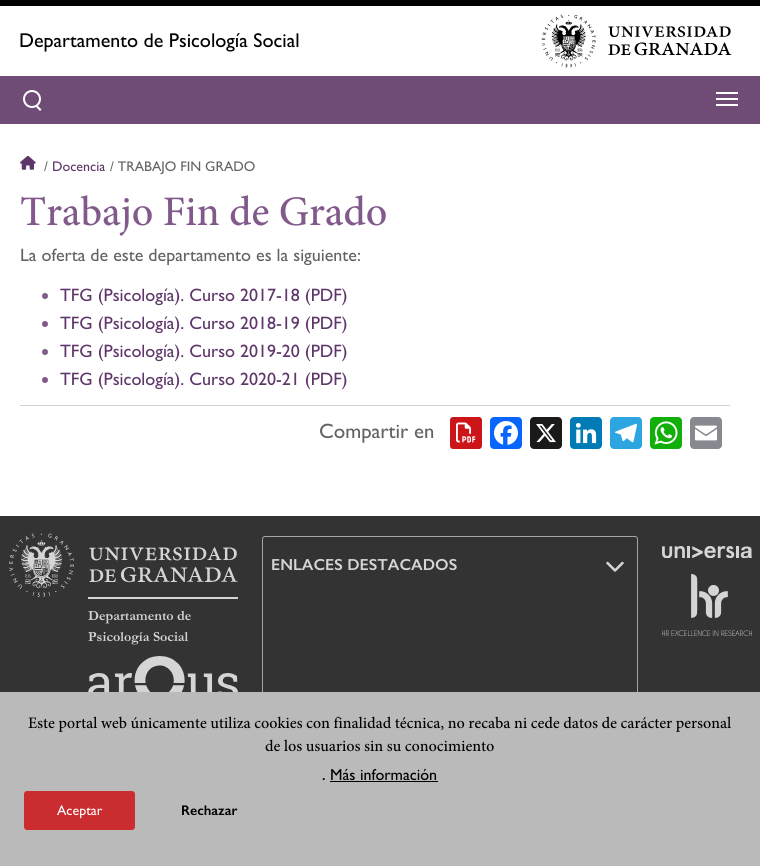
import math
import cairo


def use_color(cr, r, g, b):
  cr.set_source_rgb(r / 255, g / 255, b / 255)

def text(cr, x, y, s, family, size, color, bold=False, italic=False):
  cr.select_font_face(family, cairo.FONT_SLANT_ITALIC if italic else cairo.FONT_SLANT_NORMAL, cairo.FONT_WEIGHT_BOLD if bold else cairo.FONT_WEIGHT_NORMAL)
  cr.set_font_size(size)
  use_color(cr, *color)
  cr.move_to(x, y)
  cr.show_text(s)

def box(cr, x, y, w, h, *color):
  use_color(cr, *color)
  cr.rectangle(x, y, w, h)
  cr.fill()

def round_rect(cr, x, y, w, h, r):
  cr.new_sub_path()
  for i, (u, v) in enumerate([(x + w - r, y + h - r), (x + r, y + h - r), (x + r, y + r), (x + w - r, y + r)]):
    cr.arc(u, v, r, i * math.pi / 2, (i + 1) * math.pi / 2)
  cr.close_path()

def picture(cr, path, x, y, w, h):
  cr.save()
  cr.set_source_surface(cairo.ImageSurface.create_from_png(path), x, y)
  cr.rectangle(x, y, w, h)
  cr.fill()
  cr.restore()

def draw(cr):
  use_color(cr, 255, 255, 255)
  cr.paint()
  box(cr, 0, 0, 760, 6, 1, 1, 1)
  box(cr, 0, 76, 760, 48, 111, 76, 118)
  picture(cr, "img_01.png", 541, 14, 191, 54)
  cr.arc(32, 99, 8, 0, 2 * math.pi)
  use_color(cr, 255, 255, 255)
  cr.stroke()
  cr.new_path()
  cr.move_to(37, 105)
  cr.line_to(41.5, 109.5)
  cr.line_to(40, 111)
  cr.line_to(35.5, 106.5)
  cr.close_path()
  cr.fill()
  box(cr, 716, 98, 22, 2, 255, 255, 255)
  box(cr, 716, 92, 22, 2, 255, 255, 255)
  box(cr, 716, 104, 22, 2, 255, 255, 255)
  picture(cr, "img_02.png", 20, 156, 16, 14)
  picture(cr, "img_03.png", 21, 195, 365, 41)
  use_color(cr, 129, 89, 138)
  cr.arc(45, 296, 3, 0, 2 * math.pi)
  cr.fill()
  cr.arc(45, 324, 3, 0, 2 * math.pi)
  cr.fill()
  cr.arc(45, 352, 3, 0, 2 * math.pi)
  cr.fill()
  cr.arc(45, 380, 3, 0, 2 * math.pi)
  cr.fill()
  box(cr, 20, 405, 710, 1, 211, 210, 210)
  use_color(cr, 204, 21, 25)
  round_rect(cr, 450, 417, 32, 32, 3)
  cr.fill()
  picture(cr, "img_04.png", 456, 422, 20, 21)
  use_color(cr, 8, 102, 255)
  round_rect(cr, 490, 417, 32, 32, 4)
  cr.fill()
  picture(cr, "img_05.png", 494, 421, 24, 24)
  use_color(cr, 26, 26, 26)
  round_rect(cr, 530, 417, 32, 32, 4)
  cr.fill()
  picture(cr, "img_06.png", 536, 424, 20, 19)
  use_color(cr, 0, 123, 181)
  round_rect(cr, 570, 417, 32, 32, 4)
  cr.fill()
  picture(cr, "img_07.png", 575, 422, 22, 22)
  use_color(cr, 44, 165, 224)
  round_rect(cr, 610, 417, 32, 32, 4)
  cr.fill()
  picture(cr, "img_08.png", 615, 423, 22, 20)
  use_color(cr, 18, 175, 10)
  round_rect(cr, 650, 417, 32, 32, 4)
  cr.fill()
  picture(cr, "img_09.png", 654, 421, 24, 24)
  use_color(cr, 136, 137, 144)
  round_rect(cr, 690, 417, 32, 32, 4)
  cr.fill()
  picture(cr, "img_10.png", 695, 425, 22, 16)
  box(cr, 0, 516, 760, 176, 51, 51, 51)
  round_rect(cr, 262.5, 536.5, 375, 183, 2.5)
  use_color(cr, 167, 165, 166)
  cr.set_line_width(1)
  cr.stroke()
  picture(cr, "img_11.png", 606, 561, 18, 11)
  picture(cr, "img_12.png", 662, 546, 90, 12)
  picture(cr, "img_13.png", 662, 574, 90, 62)
  picture(cr, "img_14.png", 9, 533, 229, 64)
  box(cr, 88, 597, 150, 2, 213, 213, 213)
  picture(cr, "img_15.png", 88, 656, 150, 36)
  box(cr, 0, 692, 760, 174, 186, 186, 186)
  picture(cr, "img_16.png", 28, 716, 703, 16)
  picture(cr, "img_17.png", 265, 739, 229, 13)
  box(cr, 330, 781, 108, 1, 0, 0, 0)
  use_color(cr, 203, 44, 48)
  round_rect(cr, 24, 791, 111, 39, 3)
  cr.fill()
  text(cr, 19, 47, "Departamento de Psicología Social", "Gill Sans", 20, (0, 0, 0))
  text(cr, 44, 171, "/", "Gill Sans", 14, (101, 98, 98))
  text(cr, 52, 171, "Docencia", "Gill Sans", 14, (94, 54, 106))
  text(cr, 110, 171, "/ TRABAJO FIN GRADO", "Gill Sans", 14, (101, 98, 98))
  text(cr, 20, 261, "La oferta de este departamento es la siguiente:", "Gill Sans", 18, (101, 98, 98))
  text(cr, 60, 301, "TFG (Psicología). Curso 2017-18 (PDF)", "Gill Sans", 18, (94, 54, 106))
  text(cr, 60, 329, "TFG (Psicología). Curso 2018-19 (PDF)", "Gill Sans", 18, (94, 54, 106))
  text(cr, 60, 357, "TFG (Psicología). Curso 2019-20 (PDF)", "Gill Sans", 18, (94, 54, 106))
  text(cr, 60, 385, "TFG (Psicología). Curso 2020-21 (PDF)", "Gill Sans", 18, (94, 54, 106))
  text(cr, 319, 438, "Compartir en", "Gill Sans", 20.75, (101, 98, 98))
  text(cr, 271, 570, "ENLACES DESTACADOS", "Gill Sans SemiBold", 16, (213, 213, 213))
  text(cr, 88, 620, "Departamento de", "Garamond", 14, (213, 213, 213), bold=True)
  text(cr, 88, 641, "Psicología Social", "Garamond", 14, (213, 213, 213), bold=True)
  text(cr, 322, 780, ".", "Gill Sans SemiBold", 14, (0, 0, 0))
  text(cr, 330, 780, "Más información", "Gill Sans", 16, (0, 0, 0))
  text(cr, 57, 815, "Aceptar", "Gill Sans", 14, (255, 255, 255))
  text(cr, 181, 815, "Rechazar", "Gill Sans SemiBold", 14, (0, 0, 0))


surface = cairo.ImageSurface(cairo.FORMAT_RGB24, 760, 866)
cr = cairo.Context(surface)
options = cairo.FontOptions()
options.set_hint_metrics(cairo.HINT_METRICS_OFF)
options.set_hint_style(cairo.HINT_STYLE_NONE)
cr.set_font_options(options)
cr.set_miter_limit(4)
draw(cr)
surface.write_to_png("out.png")
